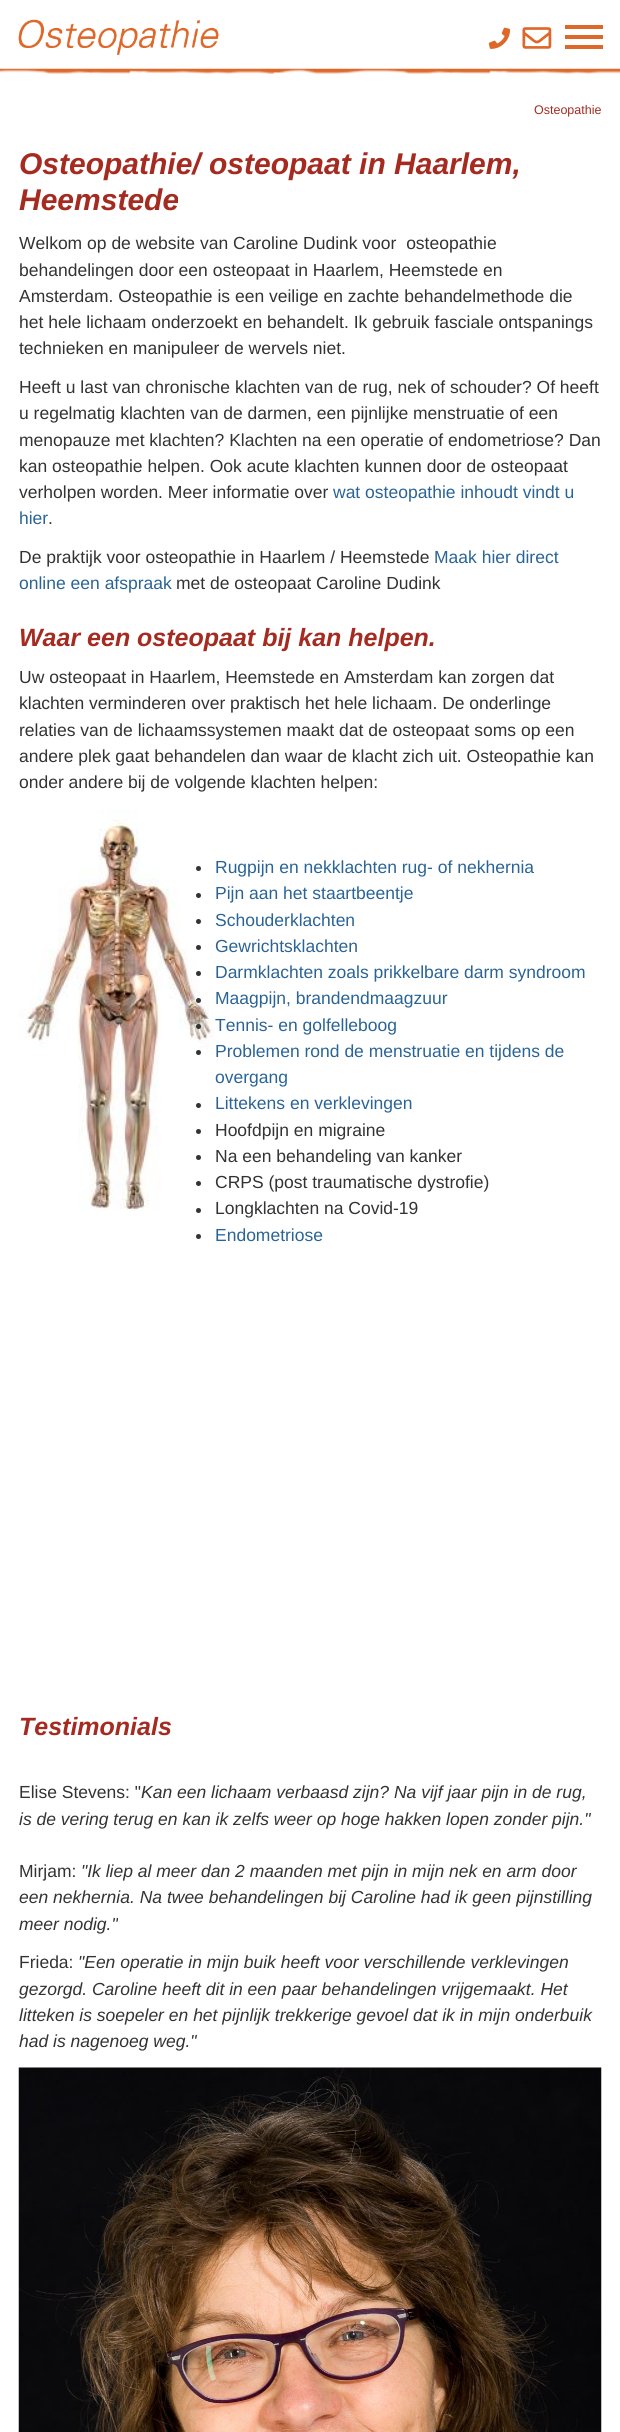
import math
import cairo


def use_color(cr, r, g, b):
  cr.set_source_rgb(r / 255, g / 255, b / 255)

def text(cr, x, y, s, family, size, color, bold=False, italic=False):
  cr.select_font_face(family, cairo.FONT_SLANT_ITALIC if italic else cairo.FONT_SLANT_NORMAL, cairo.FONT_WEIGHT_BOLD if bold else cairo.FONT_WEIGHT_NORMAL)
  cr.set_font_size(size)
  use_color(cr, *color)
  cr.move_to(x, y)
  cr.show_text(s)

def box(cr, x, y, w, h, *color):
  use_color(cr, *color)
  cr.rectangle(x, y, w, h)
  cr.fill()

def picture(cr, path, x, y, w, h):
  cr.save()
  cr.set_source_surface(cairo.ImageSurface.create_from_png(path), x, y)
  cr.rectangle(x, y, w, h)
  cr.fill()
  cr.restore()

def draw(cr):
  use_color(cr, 255, 255, 255)
  cr.paint()
  picture(cr, "img_01.png", 0, 68, 620, 6)
  picture(cr, "img_02.png", 18, 19, 201, 36)
  box(cr, 565, 35, 38, 4, 221, 104, 42)
  box(cr, 565, 25, 38, 4, 221, 104, 42)
  box(cr, 565, 45, 38, 4, 221, 104, 42)
  picture(cr, "img_03.png", 488, 27, 22, 22)
  picture(cr, "img_04.png", 522, 27, 30, 22)
  picture(cr, "img_05.png", 19, 809, 195, 402)
  use_color(cr, 51, 51, 51)
  cr.arc(198.5, 868.5, 2.5, 0, 2 * math.pi)
  cr.fill()
  cr.arc(198.5, 895.5, 2.5, 0, 2 * math.pi)
  cr.fill()
  cr.arc(198.5, 921.5, 2.5, 0, 2 * math.pi)
  cr.fill()
  cr.arc(198.5, 947.5, 2.5, 0, 2 * math.pi)
  cr.fill()
  cr.arc(198.5, 973.5, 2.5, 0, 2 * math.pi)
  cr.fill()
  cr.arc(198.5, 1000.5, 2.5, 0, 2 * math.pi)
  cr.fill()
  cr.arc(198.5, 1026.5, 2.5, 0, 2 * math.pi)
  cr.fill()
  cr.arc(198.5, 1052.5, 2.5, 0, 2 * math.pi)
  cr.fill()
  cr.arc(198.5, 1105.5, 2.5, 0, 2 * math.pi)
  cr.fill()
  cr.arc(198.5, 1131.5, 2.5, 0, 2 * math.pi)
  cr.fill()
  cr.arc(198.5, 1157.5, 2.5, 0, 2 * math.pi)
  cr.fill()
  cr.arc(198.5, 1183.5, 2.5, 0, 2 * math.pi)
  cr.fill()
  cr.arc(198.5, 1210.5, 2.5, 0, 2 * math.pi)
  cr.fill()
  cr.arc(198.5, 1236.5, 2.5, 0, 2 * math.pi)
  cr.fill()
  picture(cr, "img_06.png", 18, 2067, 584, 365)
  text(cr, 534, 114, "Osteopathie", "Liberation Sans", 12.5, (165, 43, 33))
  text(cr, 19, 174, "Osteopathie/ osteopaat in Haarlem,", "Liberation Sans", 30, (165, 43, 33), bold=True, italic=True)
  text(cr, 19, 210, "Heemstede", "Liberation Sans", 30, (165, 43, 33), bold=True, italic=True)
  text(cr, 19, 249, "Welkom op de website van Caroline Dudink voor  osteopathie", "Liberation Sans", 17.5, (51, 51, 51))
  text(cr, 19, 276, "behandelingen door een osteopaat in Haarlem, Heemstede en", "Liberation Sans", 17.5, (51, 51, 51))
  text(cr, 19, 302, "Amsterdam. Osteopathie is een veilige en zachte behandelmethode die", "Liberation Sans", 17.5, (51, 51, 51))
  text(cr, 19, 328, "het hele lichaam onderzoekt en behandelt. Ik gebruik fasciale ontspanings", "Liberation Sans", 17.5, (51, 51, 51))
  text(cr, 19, 354, "technieken en manipuleer de wervels niet.", "Liberation Sans", 17.5, (51, 51, 51))
  text(cr, 19, 393, "Heeft u last van chronische klachten van de rug, nek of schouder? Of heeft", "Liberation Sans", 17.5, (51, 51, 51))
  text(cr, 19, 419, "u regelmatig klachten van de darmen, een pijnlijke menstruatie of een", "Liberation Sans", 17.5, (51, 51, 51))
  text(cr, 19, 446, "menopauze met klachten? Klachten na een operatie of endometriose? Dan", "Liberation Sans", 17.5, (51, 51, 51))
  text(cr, 19, 472, "kan osteopathie helpen. Ook acute klachten kunnen door de osteopaat", "Liberation Sans", 17.5, (51, 51, 51))
  text(cr, 19, 498, "verholpen worden. Meer informatie over", "Liberation Sans", 17.5, (51, 51, 51))
  text(cr, 333, 498, "wat osteopathie inhoudt vindt u", "Liberation Sans", 17.5, (42, 100, 150))
  text(cr, 19, 524, "hier", "Liberation Sans", 17.5, (42, 100, 150))
  text(cr, 48, 524, ".", "Liberation Sans", 17.5, (51, 51, 51))
  text(cr, 19, 563, "De praktijk voor osteopathie in Haarlem / Heemstede", "Liberation Sans", 17.5, (51, 51, 51))
  text(cr, 434, 563, "Maak hier direct", "Liberation Sans", 17.5, (42, 100, 150))
  text(cr, 19, 589, "online een afspraak", "Liberation Sans", 17.5, (42, 100, 150))
  text(cr, 176, 589, "met de osteopaat Caroline Dudink", "Liberation Sans", 17.5, (51, 51, 51))
  text(cr, 19, 646, "Waar een osteopaat bij kan helpen.", "Liberation Sans", 25, (165, 43, 33), bold=True, italic=True)
  text(cr, 19, 683, "Uw osteopaat in Haarlem, Heemstede en Amsterdam kan zorgen dat", "Liberation Sans", 17.5, (51, 51, 51))
  text(cr, 19, 709, "klachten verminderen over praktisch het hele lichaam. De onderlinge", "Liberation Sans", 17.5, (51, 51, 51))
  text(cr, 19, 736, "relaties van de lichaamssystemen maakt dat de osteopaat soms op een", "Liberation Sans", 17.5, (51, 51, 51))
  text(cr, 19, 762, "andere plek gaat behandelen dan waar de klacht zich uit. Osteopathie kan", "Liberation Sans", 17.5, (51, 51, 51))
  text(cr, 19, 788, "onder andere bij de volgende klachten helpen:", "Liberation Sans", 17.5, (51, 51, 51))
  text(cr, 215, 873, "Rugpijn en nekklachten rug- of nekhernia", "Liberation Sans", 17.5, (42, 100, 150))
  text(cr, 215, 899, "Pijn aan het staartbeentje", "Liberation Sans", 17.5, (42, 100, 150))
  text(cr, 215, 926, "Schouderklachten", "Liberation Sans", 17.5, (42, 100, 150))
  text(cr, 215, 952, "Gewrichtsklachten", "Liberation Sans", 17.5, (42, 100, 150))
  text(cr, 215, 978, "Darmklachten zoals prikkelbare darm syndroom", "Liberation Sans", 17.5, (42, 100, 150))
  text(cr, 215, 1004, "Maagpijn, brandendmaagzuur", "Liberation Sans", 17.5, (42, 100, 150))
  text(cr, 215, 1031, "Tennis- en golfelleboog", "Liberation Sans", 17.5, (42, 100, 150))
  text(cr, 215, 1057, "Problemen rond de menstruatie en tijdens de", "Liberation Sans", 17.5, (42, 100, 150))
  text(cr, 215, 1083, "overgang", "Liberation Sans", 17.5, (42, 100, 150))
  text(cr, 215, 1109, "Littekens en verklevingen", "Liberation Sans", 17.5, (42, 100, 150))
  text(cr, 215, 1136, "Hoofdpijn en migraine", "Liberation Sans", 17.5, (51, 51, 51))
  text(cr, 215, 1162, "Na een behandeling van kanker", "Liberation Sans", 17.5, (51, 51, 51))
  text(cr, 215, 1188, "CRPS (post traumatische dystrofie)", "Liberation Sans", 17.5, (51, 51, 51))
  text(cr, 215, 1214, "Longklachten na Covid-19", "Liberation Sans", 17.5, (51, 51, 51))
  text(cr, 215, 1241, "Endometriose", "Liberation Sans", 17.5, (42, 100, 150))
  text(cr, 19, 1735, "Testimonials", "Liberation Sans", 25, (165, 43, 33), bold=True, italic=True)
  text(cr, 19, 1798, "Elise Stevens: \"", "Liberation Sans", 17.5, (51, 51, 51))
  text(cr, 141, 1798, "Kan een lichaam verbaasd zijn? Na vijf jaar pijn in de rug,", "Liberation Sans", 17.5, (51, 51, 51), italic=True)
  text(cr, 19, 1825, "is de vering terug en kan ik zelfs weer op hoge hakken lopen zonder pijn.\"", "Liberation Sans", 17.5, (51, 51, 51), italic=True)
  text(cr, 19, 1877, "Mirjam:", "Liberation Sans", 17.5, (51, 51, 51))
  text(cr, 81, 1877, "\"Ik liep al meer dan 2 maanden met pijn in mijn nek en arm door", "Liberation Sans", 17.5, (51, 51, 51), italic=True)
  text(cr, 19, 1903, "een nekhernia. Na twee behandelingen bij Caroline had ik geen pijnstilling", "Liberation Sans", 17.5, (51, 51, 51), italic=True)
  text(cr, 19, 1930, "meer nodig.\"", "Liberation Sans", 17.5, (51, 51, 51), italic=True)
  text(cr, 19, 1968, "Frieda:", "Liberation Sans", 17.5, (51, 51, 51))
  text(cr, 78, 1968, "\"Een operatie in mijn buik heeft voor verschillende verklevingen", "Liberation Sans", 17.5, (51, 51, 51), italic=True)
  text(cr, 19, 1995, "gezorgd. Caroline heeft dit in een paar behandelingen vrijgemaakt. Het", "Liberation Sans", 17.5, (51, 51, 51), italic=True)
  text(cr, 19, 2021, "litteken is soepeler en het pijnlijk trekkerige gevoel dat ik in mijn onderbuik", "Liberation Sans", 17.5, (51, 51, 51), italic=True)
  text(cr, 19, 2047, "had is nagenoeg weg.\"", "Liberation Sans", 17.5, (51, 51, 51), italic=True)


surface = cairo.ImageSurface(cairo.FORMAT_RGB24, 620, 2432)
cr = cairo.Context(surface)
options = cairo.FontOptions()
options.set_hint_metrics(cairo.HINT_METRICS_OFF)
options.set_hint_style(cairo.HINT_STYLE_NONE)
cr.set_font_options(options)
cr.set_miter_limit(4)
draw(cr)
surface.write_to_png("out.png")
